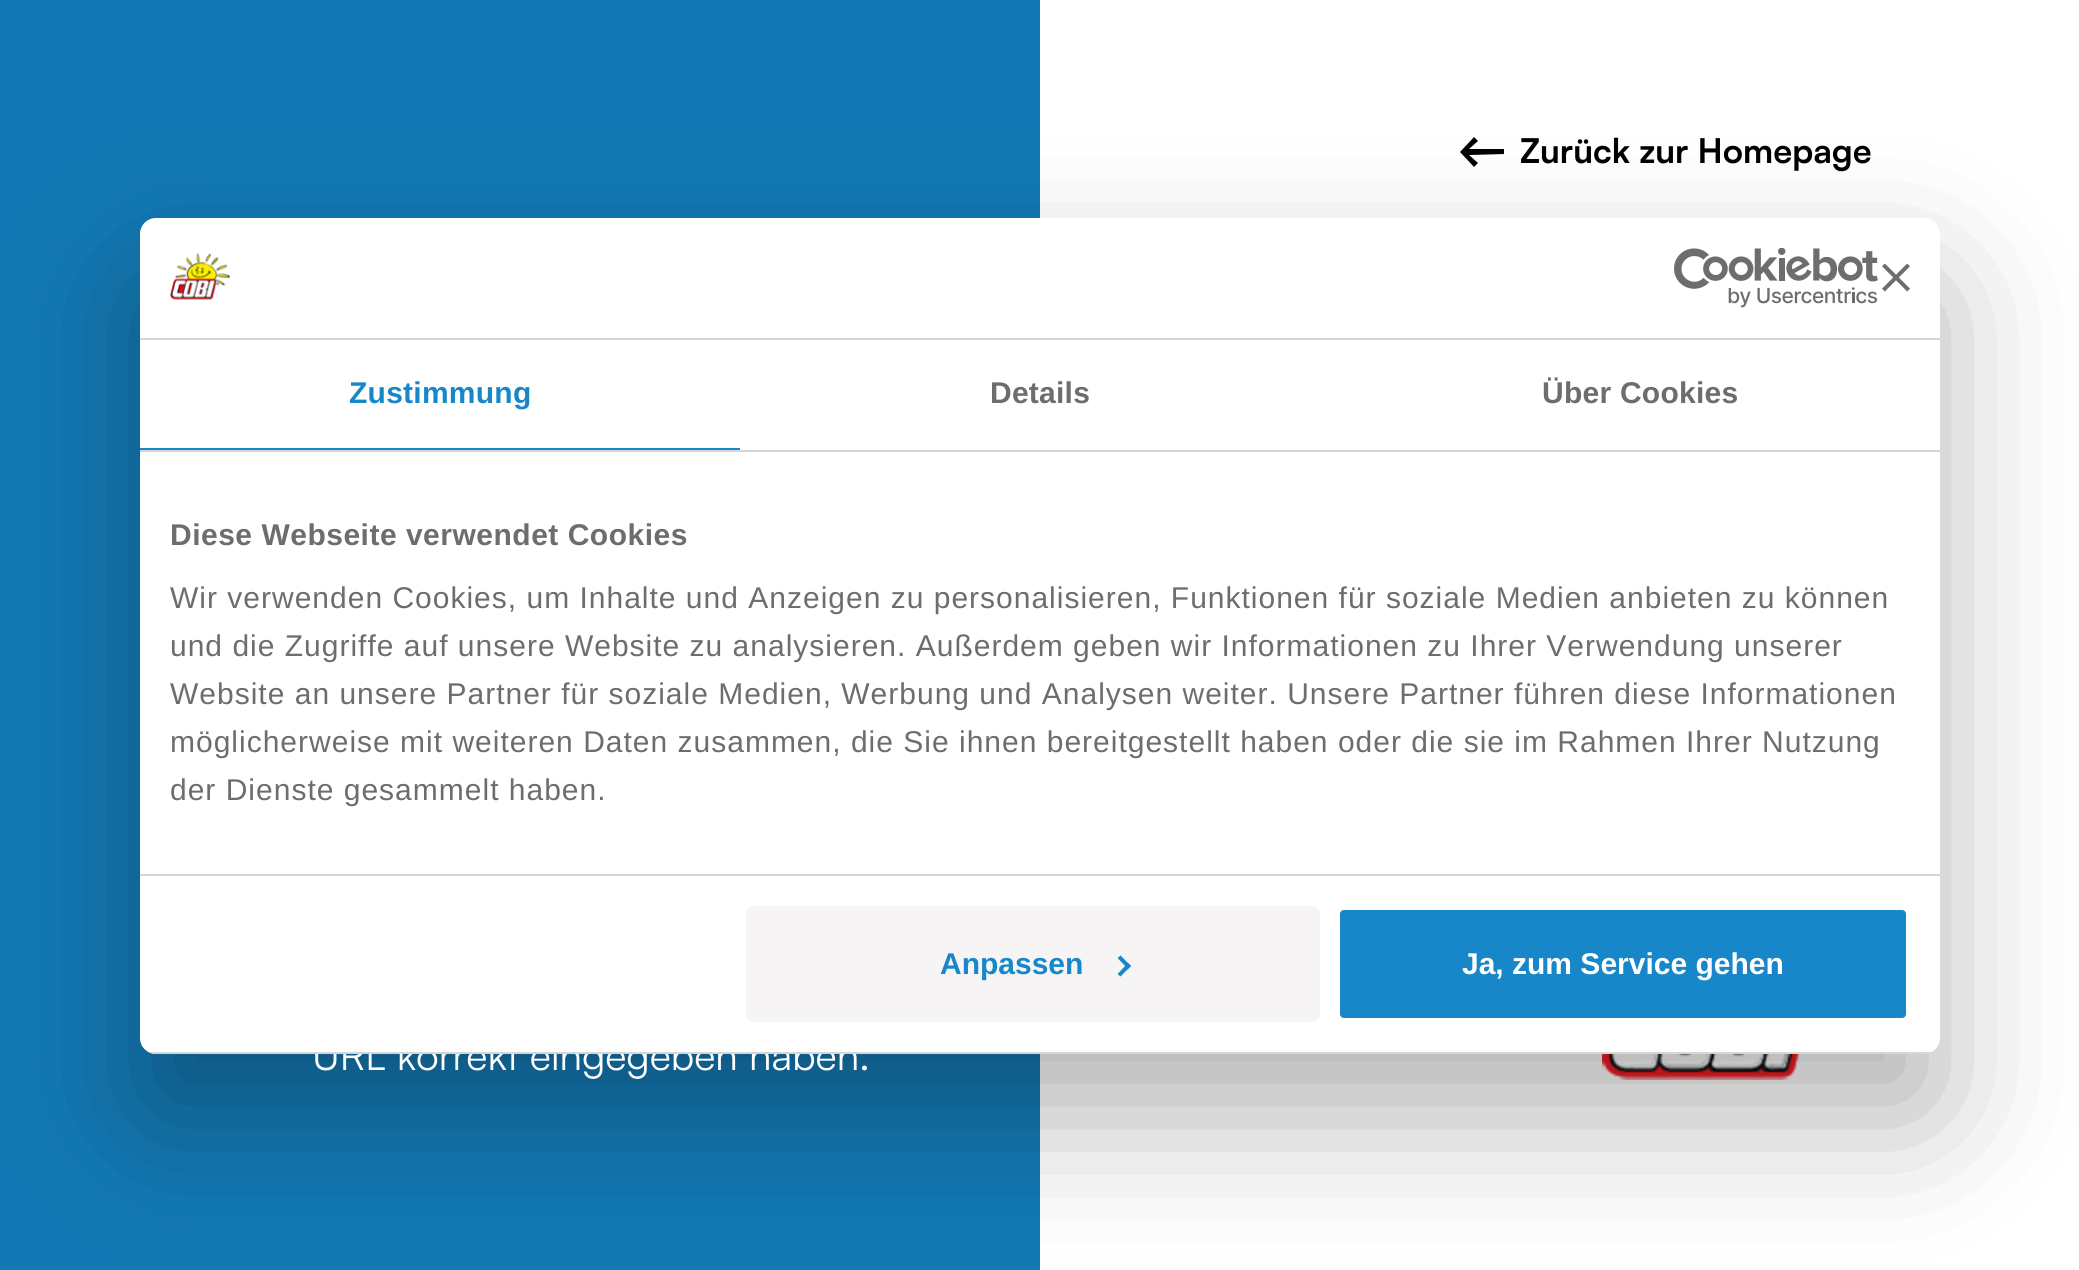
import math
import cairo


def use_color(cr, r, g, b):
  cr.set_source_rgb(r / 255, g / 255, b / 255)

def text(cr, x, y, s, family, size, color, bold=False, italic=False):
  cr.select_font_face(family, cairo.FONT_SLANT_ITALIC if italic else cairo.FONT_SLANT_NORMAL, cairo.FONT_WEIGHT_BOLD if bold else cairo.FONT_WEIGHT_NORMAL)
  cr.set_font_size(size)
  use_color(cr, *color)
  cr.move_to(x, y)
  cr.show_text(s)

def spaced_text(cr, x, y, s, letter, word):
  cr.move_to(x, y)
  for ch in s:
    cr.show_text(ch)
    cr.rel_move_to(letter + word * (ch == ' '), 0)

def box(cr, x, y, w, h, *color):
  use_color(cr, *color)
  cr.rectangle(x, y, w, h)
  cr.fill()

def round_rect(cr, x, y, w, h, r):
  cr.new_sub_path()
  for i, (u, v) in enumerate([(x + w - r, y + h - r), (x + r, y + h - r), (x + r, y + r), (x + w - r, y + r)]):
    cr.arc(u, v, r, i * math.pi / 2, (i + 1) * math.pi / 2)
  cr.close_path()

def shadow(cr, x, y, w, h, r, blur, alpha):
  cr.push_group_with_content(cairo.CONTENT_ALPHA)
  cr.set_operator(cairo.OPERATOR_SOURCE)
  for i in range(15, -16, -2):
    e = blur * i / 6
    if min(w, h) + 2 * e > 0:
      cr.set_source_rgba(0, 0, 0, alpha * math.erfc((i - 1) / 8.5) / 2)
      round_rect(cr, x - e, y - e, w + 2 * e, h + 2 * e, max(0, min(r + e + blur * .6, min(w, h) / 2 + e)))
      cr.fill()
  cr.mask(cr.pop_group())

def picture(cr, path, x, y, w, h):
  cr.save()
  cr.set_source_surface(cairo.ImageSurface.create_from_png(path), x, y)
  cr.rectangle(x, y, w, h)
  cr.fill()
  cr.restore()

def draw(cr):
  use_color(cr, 255, 255, 255)
  cr.paint()
  box(cr, 0, 0, 1040, 1270, 19, 121, 180)
  use_color(cr, 0, 0, 0)
  cr.new_path()
  cr.move_to(1474, 167)
  cr.line_to(1478, 163)
  cr.line_to(1469, 155)
  cr.line_to(1504, 154)
  cr.line_to(1504, 149)
  cr.line_to(1469, 149)
  cr.line_to(1478, 141)
  cr.line_to(1474, 137)
  cr.line_to(1460, 152)
  cr.close_path()
  cr.fill()
  picture(cr, "img_01.png", 1602, 1054, 198, 26)
  use_color(cr, 0, 0, 0)
  shadow(cr, 140, 282, 1800, 836, 16, 68, 0.3)
  use_color(cr, 255, 255, 255)
  round_rect(cr, 140, 218, 1800, 836, 16)
  cr.fill()
  box(cr, 140, 338, 1800, 2, 214, 214, 214)
  picture(cr, "img_02.png", 170, 253, 60, 47)
  picture(cr, "img_03.png", 1674, 248, 204, 60)
  picture(cr, "img_04.png", 1882, 264, 28, 28)
  box(cr, 140, 450, 1800, 2, 214, 214, 214)
  box(cr, 140, 448, 600, 2, 23, 135, 201)
  box(cr, 140, 874, 1800, 2, 214, 214, 214)
  use_color(cr, 246, 244, 244)
  round_rect(cr, 748, 908, 570, 112, 6)
  cr.fill_preserve()
  cr.set_line_width(4)
  cr.stroke()
  use_color(cr, 23, 135, 201)
  cr.new_path()
  cr.move_to(1120.5, 955.5)
  cr.line_to(1131, 966)
  cr.line_to(1128, 969)
  cr.line_to(1117.5, 958)
  cr.close_path()
  cr.fill()
  cr.new_path()
  cr.move_to(1128, 963)
  cr.line_to(1131, 966)
  cr.line_to(1120.5, 976.5)
  cr.line_to(1117.5, 974)
  cr.close_path()
  cr.fill()
  round_rect(cr, 1338, 908, 570, 112, 6)
  cr.fill_preserve()
  use_color(cr, 255, 255, 255)
  cr.stroke()
  text(cr, 1520, 163, "Zurück zur Homepage", "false", 34, (0, 0, 0), bold=True)
  text(cr, 312, 1070, "URL korrekt eingegeben haben.", "false", 40, (255, 255, 255))
  cr.select_font_face("Liberation Sans", cairo.FONT_SLANT_NORMAL, cairo.FONT_WEIGHT_BOLD)
  cr.set_font_size(30)
  use_color(cr, 23, 135, 201)
  spaced_text(cr, 349, 403, "Zustimmung", 0.25, 0)
  use_color(cr, 109, 109, 109)
  spaced_text(cr, 990, 403, "Details", 0.25, 0)
  spaced_text(cr, 1542, 403, "Über Cookies", 0.25, 0)
  spaced_text(cr, 170, 545, "Diese Webseite verwendet Cookies", 0.5, 0)
  cr.select_font_face("Liberation Sans")
  spaced_text(cr, 170, 608, "Wir verwenden Cookies, um Inhalte und Anzeigen zu personalisieren, Funktionen für soziale Medien anbieten zu können", 1, 0)
  spaced_text(cr, 170, 656, "und die Zugriffe auf unsere Website zu analysieren. Außerdem geben wir Informationen zu Ihrer Verwendung unserer", 1, 0)
  spaced_text(cr, 170, 704, "Website an unsere Partner für soziale Medien, Werbung und Analysen weiter. Unsere Partner führen diese Informationen", 1, 0)
  spaced_text(cr, 170, 752, "möglicherweise mit weiteren Daten zusammen, die Sie ihnen bereitgestellt haben oder die sie im Rahmen Ihrer Nutzung", 1, 0)
  spaced_text(cr, 170, 800, "der Dienste gesammelt haben.", 1, 0)
  cr.save()
  round_rect(cr, 140, 218, 1800, 836, 16)
  cr.clip()
  box(cr, 140, 1052, 1800, 2, 214, 214, 214)
  cr.restore()
  text(cr, 940, 974, "Anpassen", "Liberation Sans", 30, (23, 135, 201), bold=True)
  text(cr, 1462, 974, "Ja, zum Service gehen", "Liberation Sans", 30, (255, 255, 255), bold=True)


surface = cairo.ImageSurface(cairo.FORMAT_RGB24, 2079, 1270)
cr = cairo.Context(surface)
options = cairo.FontOptions()
options.set_hint_metrics(cairo.HINT_METRICS_OFF)
options.set_hint_style(cairo.HINT_STYLE_NONE)
cr.set_font_options(options)
cr.set_miter_limit(4)
draw(cr)
surface.write_to_png("out.png")
